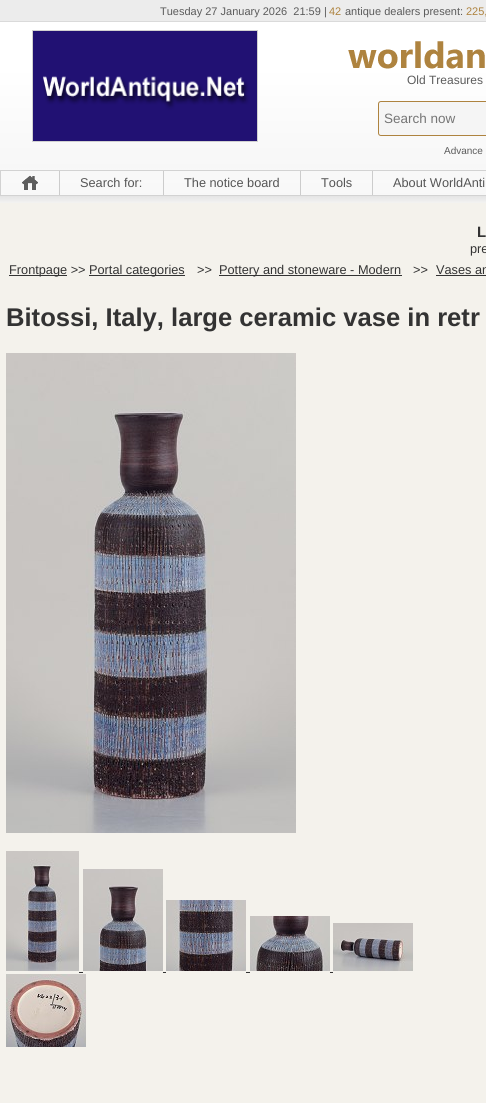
import math
import cairo


def use_color(cr, r, g, b):
  cr.set_source_rgb(r / 255, g / 255, b / 255)

def text(cr, x, y, s, family, size, color, bold=False, italic=False):
  cr.select_font_face(family, cairo.FONT_SLANT_ITALIC if italic else cairo.FONT_SLANT_NORMAL, cairo.FONT_WEIGHT_BOLD if bold else cairo.FONT_WEIGHT_NORMAL)
  cr.set_font_size(size)
  use_color(cr, *color)
  cr.move_to(x, y)
  cr.show_text(s)

def box(cr, x, y, w, h, *color):
  use_color(cr, *color)
  cr.rectangle(x, y, w, h)
  cr.fill()

def picture(cr, path, x, y, w, h):
  cr.save()
  cr.set_source_surface(cairo.ImageSurface.create_from_png(path), x, y)
  cr.rectangle(x, y, w, h)
  cr.fill()
  cr.restore()

def draw(cr):
  use_color(cr, 244, 242, 236)
  cr.paint()
  picture(cr, "img_01.png", 0, 0, 486, 203)
  cr.rectangle(32.5, 30.5, 225, 111)
  use_color(cr, 209, 209, 209)
  cr.set_line_width(1)
  cr.stroke()
  picture(cr, "img_02.png", 33, 31, 224, 110)
  picture(cr, "img_03.png", 348, 41, 137, 28)
  use_color(cr, 245, 245, 245)
  cr.new_path()
  cr.move_to(381, 101.5)
  cr.line_to(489.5, 101.5)
  cr.line_to(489.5, 135.5)
  cr.line_to(381, 135.5)
  cr.curve_to(379.5, 135.5, 378.5, 134.5, 378.5, 133)
  cr.line_to(378.5, 104)
  cr.curve_to(378.5, 102.5, 379.5, 101.5, 381, 101.5)
  cr.close_path()
  cr.fill_preserve()
  use_color(cr, 174, 131, 63)
  cr.stroke()
  box(cr, 4, 193, 481, 1, 247, 247, 247)
  box(cr, 0, 170, 486, 1, 210, 210, 210)
  box(cr, 0, 195, 486, 1, 210, 210, 210)
  box(cr, 0, 170, 1, 26, 210, 210, 210)
  box(cr, 59, 171, 1, 24, 204, 204, 204)
  picture(cr, "img_04.png", 22, 175, 16, 15)
  box(cr, 163, 171, 1, 24, 204, 204, 204)
  box(cr, 300, 171, 1, 24, 204, 204, 204)
  box(cr, 372, 171, 1, 24, 204, 204, 204)
  box(cr, 9, 275, 58, 1, 51, 51, 51)
  box(cr, 89, 275, 96, 1, 51, 51, 51)
  box(cr, 219, 275, 183, 1, 51, 51, 51)
  box(cr, 436, 275, 50, 1, 51, 51, 51)
  picture(cr, "img_05.png", 6, 353, 290, 480)
  picture(cr, "img_06.png", 6, 851, 73, 120)
  picture(cr, "img_07.png", 83, 869, 80, 102)
  picture(cr, "img_08.png", 166, 900, 80, 71)
  picture(cr, "img_09.png", 250, 916, 80, 55)
  picture(cr, "img_10.png", 333, 923, 80, 48)
  box(cr, 79, 972, 4, 1, 51, 51, 51)
  box(cr, 163, 972, 3, 1, 51, 51, 51)
  box(cr, 246, 972, 4, 1, 51, 51, 51)
  box(cr, 330, 972, 3, 1, 51, 51, 51)
  picture(cr, "img_11.png", 6, 974, 80, 73)
  text(cr, 160, 15, "Tuesday 27 January 2026  21:59 |", "Liberation Sans", 11, (91, 91, 91))
  text(cr, 329, 15, "42", "Liberation Sans", 11, (174, 131, 63))
  text(cr, 345, 15, "antique dealers present:", "Liberation Sans", 11, (91, 91, 91))
  text(cr, 466, 15, "225,", "Liberation Sans", 11, (174, 131, 63))
  text(cr, 407, 84, "Old Treasures", "Liberation Sans", 12, (91, 91, 91))
  text(cr, 384, 123, "Search now", "Liberation Sans", 13.5, (117, 117, 117))
  text(cr, 444, 154, "Advance", "Liberation Sans", 10, (91, 91, 91))
  text(cr, 80, 187, "Search for:", "Liberation Sans", 12.75, (85, 85, 85))
  text(cr, 184, 187, "The notice board", "Liberation Sans", 12.75, (85, 85, 85))
  text(cr, 321, 187, "Tools", "Liberation Sans", 12.75, (85, 85, 85))
  text(cr, 393, 187, "About WorldAnti", "Liberation Sans", 12.75, (85, 85, 85))
  text(cr, 477, 237, "L", "Liberation Sans", 15, (51, 51, 51), bold=True)
  text(cr, 470, 253, "pre", "Liberation Sans", 12.75, (51, 51, 51))
  text(cr, 9, 274, "Frontpage >>", "Liberation Sans", 12.75, (51, 51, 51))
  text(cr, 89, 274, "Portal categories", "Liberation Sans", 12.75, (51, 51, 51))
  text(cr, 197, 274, ">>", "Liberation Sans", 12.75, (51, 51, 51))
  text(cr, 219, 274, "Pottery and stoneware - Modern", "Liberation Sans", 12.75, (51, 51, 51))
  text(cr, 413, 274, ">>", "Liberation Sans", 12.75, (51, 51, 51))
  text(cr, 436, 274, "Vases an", "Liberation Sans", 12.75, (51, 51, 51))
  text(cr, 6, 326, "Bitossi, Italy, large ceramic vase in retr", "Liberation Sans", 25.6, (51, 51, 51), bold=True)


surface = cairo.ImageSurface(cairo.FORMAT_RGB24, 486, 1103)
cr = cairo.Context(surface)
options = cairo.FontOptions()
options.set_hint_metrics(cairo.HINT_METRICS_OFF)
options.set_hint_style(cairo.HINT_STYLE_NONE)
cr.set_font_options(options)
cr.set_miter_limit(4)
draw(cr)
surface.write_to_png("out.png")
